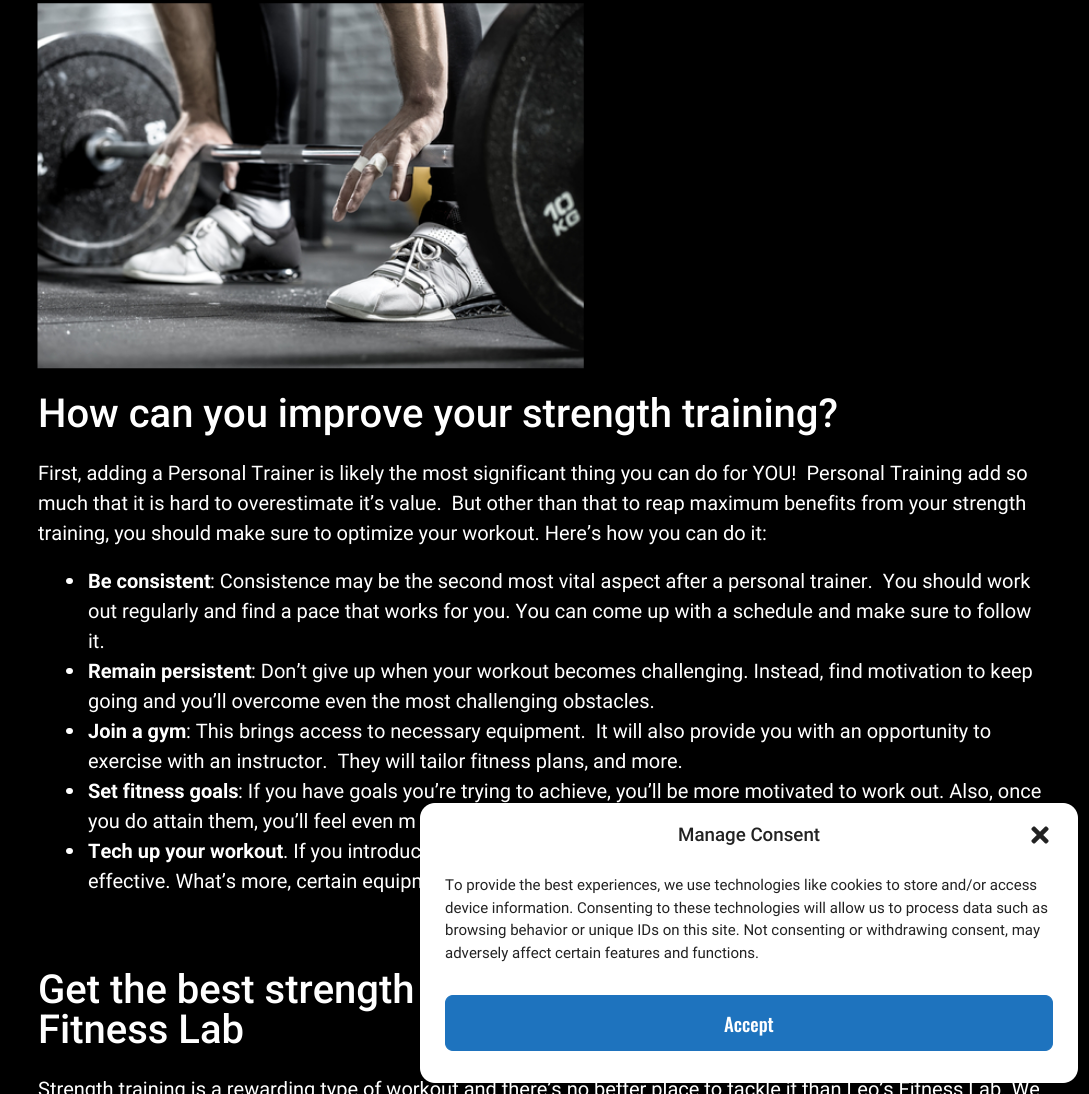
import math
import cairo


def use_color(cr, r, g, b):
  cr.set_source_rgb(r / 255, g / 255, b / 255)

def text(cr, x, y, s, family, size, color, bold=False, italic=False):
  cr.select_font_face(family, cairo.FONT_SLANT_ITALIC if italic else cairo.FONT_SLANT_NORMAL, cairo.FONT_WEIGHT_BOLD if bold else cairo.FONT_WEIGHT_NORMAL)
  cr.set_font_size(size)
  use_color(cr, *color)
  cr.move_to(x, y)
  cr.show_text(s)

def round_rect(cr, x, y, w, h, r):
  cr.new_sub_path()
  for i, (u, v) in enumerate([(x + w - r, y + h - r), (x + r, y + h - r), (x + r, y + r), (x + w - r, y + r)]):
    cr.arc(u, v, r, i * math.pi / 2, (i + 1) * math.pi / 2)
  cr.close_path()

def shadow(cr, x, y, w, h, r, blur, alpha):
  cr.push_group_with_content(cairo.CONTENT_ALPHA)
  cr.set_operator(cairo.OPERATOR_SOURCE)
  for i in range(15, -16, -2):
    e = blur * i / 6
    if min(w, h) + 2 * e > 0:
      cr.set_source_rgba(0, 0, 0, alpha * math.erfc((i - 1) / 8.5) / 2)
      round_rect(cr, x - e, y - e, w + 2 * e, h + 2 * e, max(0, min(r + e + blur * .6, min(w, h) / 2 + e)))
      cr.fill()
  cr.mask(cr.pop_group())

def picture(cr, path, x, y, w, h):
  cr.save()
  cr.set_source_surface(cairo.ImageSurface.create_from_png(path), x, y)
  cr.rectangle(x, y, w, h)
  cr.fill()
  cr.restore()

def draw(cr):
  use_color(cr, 0, 0, 0)
  cr.paint()
  picture(cr, "img_01.png", 37, 3, 547, 366)
  use_color(cr, 255, 255, 255)
  round_rect(cr, 66, 578, 7, 6, 3)
  cr.fill()
  round_rect(cr, 66, 668, 7, 6, 3)
  cr.fill()
  round_rect(cr, 66, 728, 7, 6, 3)
  cr.fill()
  round_rect(cr, 66, 788, 7, 6, 3)
  cr.fill()
  round_rect(cr, 66, 848, 7, 6, 3)
  cr.fill()
  use_color(cr, 0, 0, 0)
  shadow(cr, 420, 810, 658, 280, 15, 4, 0.23)
  shadow(cr, 420, 815, 658, 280, 15, 12.5, 0.19)
  use_color(cr, 255, 255, 255)
  round_rect(cr, 420, 803, 658, 280, 15)
  cr.fill()
  picture(cr, "img_02.png", 1031, 826, 18, 18)
  use_color(cr, 30, 115, 190)
  round_rect(cr, 445.5, 995.5, 607, 55, 7.5)
  cr.fill_preserve()
  cr.set_line_width(1)
  cr.stroke()
  text(cr, 38, 427, "How can you improve your strength training?", "Roboto Medium", 40, (255, 255, 255))
  text(cr, 38, 480, "First, adding a Personal Trainer is likely the most significant thing you can do for YOU!  Personal Training add so", "Roboto", 20, (255, 255, 255))
  text(cr, 38, 510, "much that it is hard to overestimate it’s value.  But other than that to reap maximum benefits from your strength", "Roboto", 20, (255, 255, 255))
  text(cr, 38, 540, "training, you should make sure to optimize your workout. Here’s how you can do it:", "Roboto", 20, (255, 255, 255))
  text(cr, 88, 588, "Be consistent", "Roboto", 20, (255, 255, 255), bold=True)
  text(cr, 210, 588, ": Consistence may be the second most vital aspect after a personal trainer.  You should work", "Roboto", 20, (255, 255, 255))
  text(cr, 88, 618, "out regularly and find a pace that works for you. You can come up with a schedule and make sure to follow", "Roboto", 20, (255, 255, 255))
  text(cr, 88, 648, "it.", "Roboto", 20, (255, 255, 255))
  text(cr, 88, 678, "Remain persistent", "Roboto", 20, (255, 255, 255), bold=True)
  text(cr, 251, 678, ": Don’t give up when your workout becomes challenging. Instead, find motivation to keep", "Roboto", 20, (255, 255, 255))
  text(cr, 88, 708, "going and you’ll overcome even the most challenging obstacles.", "Roboto", 20, (255, 255, 255))
  text(cr, 88, 738, "Join a gym", "Roboto", 20, (255, 255, 255), bold=True)
  text(cr, 186, 738, ": This brings access to necessary equipment.  It will also provide you with an opportunity to", "Roboto", 20, (255, 255, 255))
  text(cr, 88, 768, "exercise with an instructor.  They will tailor fitness plans, and more.", "Roboto", 20, (255, 255, 255))
  text(cr, 88, 798, "Set fitness goals", "Roboto", 20, (255, 255, 255), bold=True)
  text(cr, 238, 798, ": If you have goals you’re trying to achieve, you’ll be more motivated to work out. Also, once", "Roboto", 20, (255, 255, 255))
  text(cr, 88, 828, "you do attain them, you’ll feel even m", "Roboto", 20, (255, 255, 255))
  text(cr, 88, 858, "Tech up your workout", "Roboto", 20, (255, 255, 255), bold=True)
  text(cr, 283, 858, ". If you introduc", "Roboto", 20, (255, 255, 255))
  text(cr, 88, 888, "effective. What’s more, certain equipm", "Roboto", 20, (255, 255, 255))
  text(cr, 38, 1003, "Get the best strength", "Roboto Medium", 40, (255, 255, 255))
  text(cr, 38, 1043, "Fitness Lab", "Roboto Medium", 40, (255, 255, 255))
  text(cr, 38, 1096, "Strength training is a rewarding type of workout and there’s no better place to tackle it than Leo’s Fitness Lab. We", "Roboto", 20, (255, 255, 255))
  text(cr, 678, 841, "Manage Consent", "Roboto Medium", 18.75, (34, 34, 34))
  text(cr, 445, 890, "To provide the best experiences, we use technologies like cookies to store and/or access", "Roboto", 15, (34, 34, 34))
  text(cr, 445, 913, "device information. Consenting to these technologies will allow us to process data such as", "Roboto", 15, (34, 34, 34))
  text(cr, 445, 935, "browsing behavior or unique IDs on this site. Not consenting or withdrawing consent, may", "Roboto", 15, (34, 34, 34))
  text(cr, 445, 958, "adversely affect certain features and functions.", "Roboto", 15, (34, 34, 34))
  text(cr, 724, 1032, "Accept", "Oswald Medium", 18.75, (255, 255, 255))


surface = cairo.ImageSurface(cairo.FORMAT_RGB24, 1089, 1094)
cr = cairo.Context(surface)
options = cairo.FontOptions()
options.set_hint_metrics(cairo.HINT_METRICS_OFF)
options.set_hint_style(cairo.HINT_STYLE_NONE)
cr.set_font_options(options)
cr.set_miter_limit(4)
draw(cr)
surface.write_to_png("out.png")
